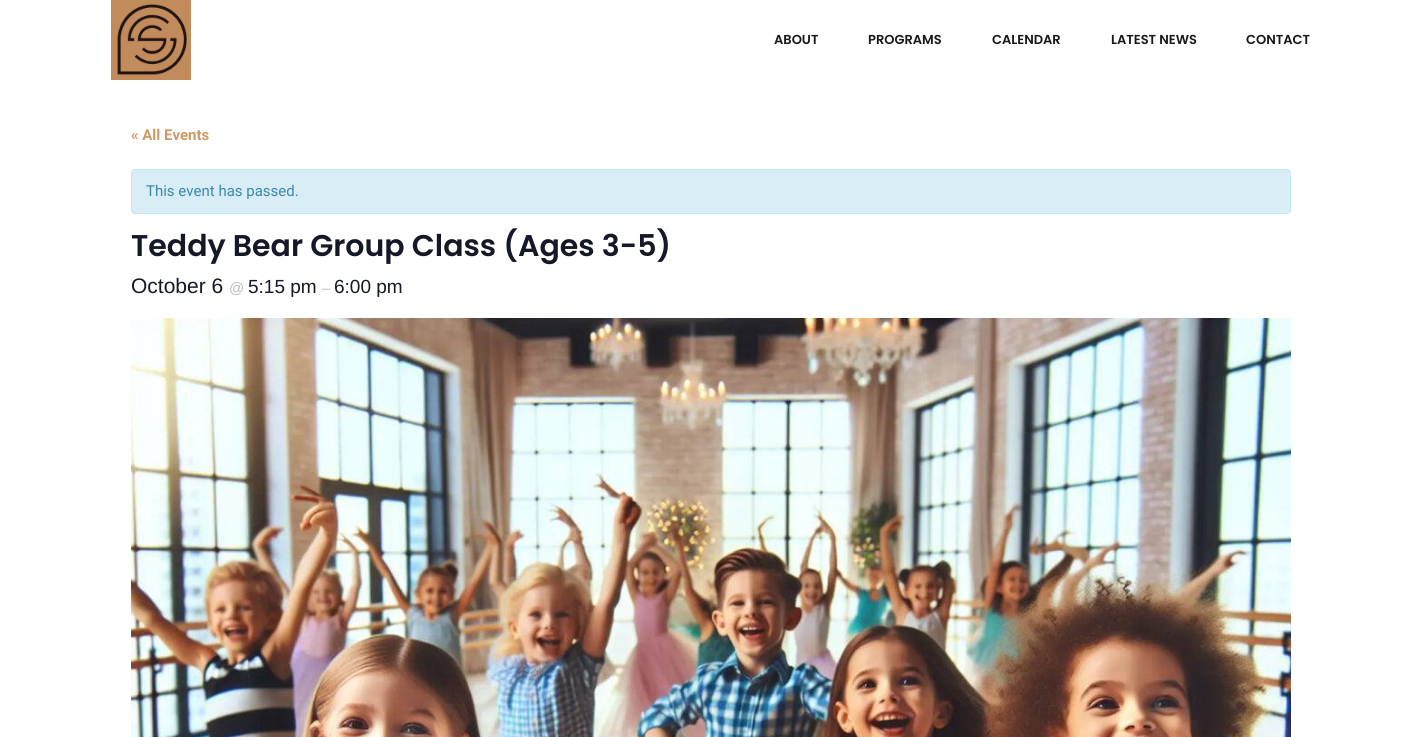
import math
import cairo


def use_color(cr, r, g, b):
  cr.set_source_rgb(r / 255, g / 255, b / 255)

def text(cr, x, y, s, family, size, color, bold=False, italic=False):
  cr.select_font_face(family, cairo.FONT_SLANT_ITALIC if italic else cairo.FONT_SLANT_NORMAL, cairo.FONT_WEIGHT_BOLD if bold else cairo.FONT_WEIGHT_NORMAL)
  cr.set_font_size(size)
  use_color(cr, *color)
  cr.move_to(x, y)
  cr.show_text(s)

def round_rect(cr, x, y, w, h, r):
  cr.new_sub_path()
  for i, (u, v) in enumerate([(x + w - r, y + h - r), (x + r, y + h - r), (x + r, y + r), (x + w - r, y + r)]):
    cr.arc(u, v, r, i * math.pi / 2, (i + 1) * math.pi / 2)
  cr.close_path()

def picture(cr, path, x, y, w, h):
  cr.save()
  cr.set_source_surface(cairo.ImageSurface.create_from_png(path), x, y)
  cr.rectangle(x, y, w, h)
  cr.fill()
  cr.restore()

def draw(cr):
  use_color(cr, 255, 255, 255)
  cr.paint()
  picture(cr, "img_01.png", 111, 0, 80, 80)
  use_color(cr, 217, 237, 247)
  round_rect(cr, 131.5, 169.5, 1159, 44, 3.5)
  cr.fill_preserve()
  use_color(cr, 188, 232, 241)
  cr.set_line_width(1)
  cr.stroke()
  picture(cr, "img_02.png", 131, 318, 1160, 419)
  text(cr, 774, 44, "ABOUT", "Poppins SemiBold", 13, (24, 24, 24))
  text(cr, 868, 44, "PROGRAMS", "Poppins SemiBold", 13, (24, 24, 24))
  text(cr, 992, 44, "CALENDAR", "Poppins SemiBold", 13, (24, 24, 24))
  text(cr, 1111, 44, "LATEST NEWS", "Poppins SemiBold", 13, (24, 24, 24))
  text(cr, 1246, 44, "CONTACT", "Poppins SemiBold", 13, (24, 24, 24))
  text(cr, 131, 140, "« All Events", "Roboto", 15, (205, 154, 102), bold=True)
  text(cr, 146, 196, "This event has passed.", "Roboto", 15, (58, 135, 173))
  text(cr, 131, 256, "Teddy Bear Group Class (Ages 3-5)", "Poppins SemiBold", 30, (20, 24, 39))
  text(cr, 131, 293, "October 6", "Liberation Sans", 21, (20, 24, 39))
  text(cr, 229, 293, "@", "Liberation Sans", 15, (185, 190, 194))
  text(cr, 248, 293, "5:15 pm", "Liberation Sans", 19, (20, 24, 39))
  text(cr, 322, 293, "–", "Liberation Sans", 15, (185, 190, 194))
  text(cr, 334, 293, "6:00 pm", "Liberation Sans", 19, (20, 24, 39))


surface = cairo.ImageSurface(cairo.FORMAT_RGB24, 1421, 737)
cr = cairo.Context(surface)
options = cairo.FontOptions()
options.set_hint_metrics(cairo.HINT_METRICS_OFF)
options.set_hint_style(cairo.HINT_STYLE_NONE)
cr.set_font_options(options)
cr.set_miter_limit(4)
draw(cr)
surface.write_to_png("out.png")
